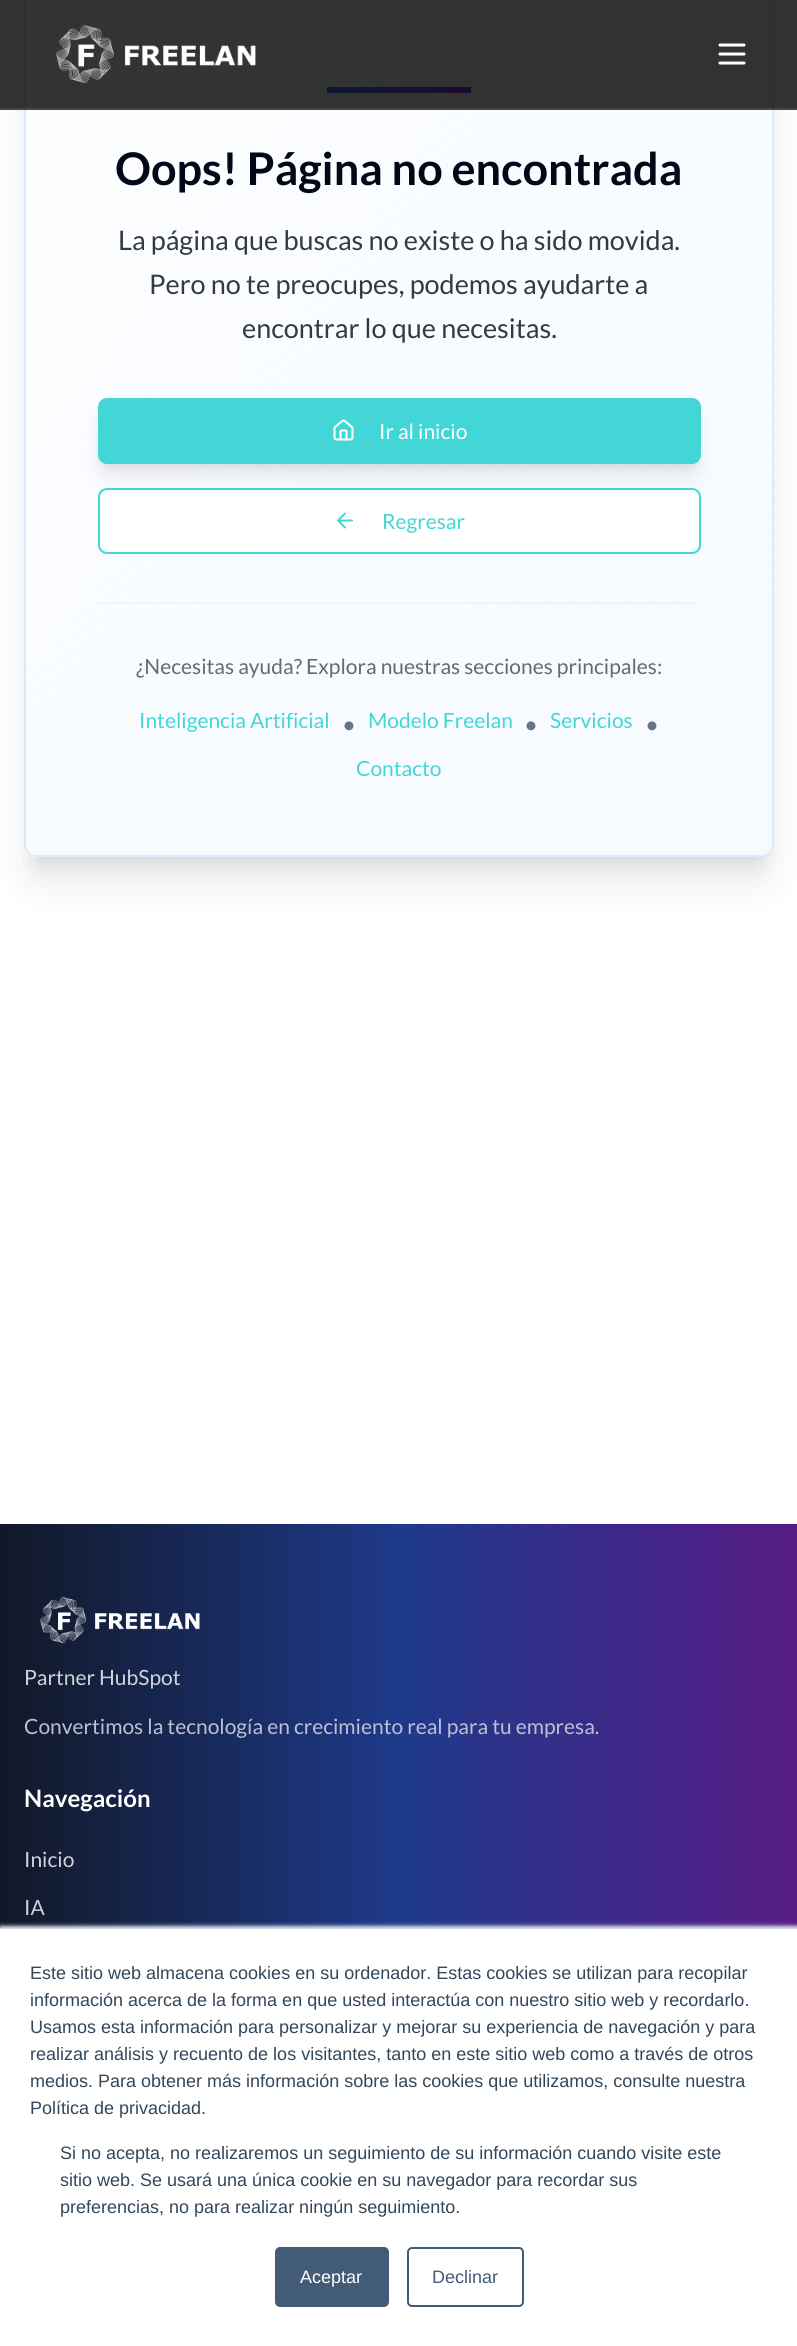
import math
import cairo


def use_color(cr, r, g, b):
  cr.set_source_rgb(r / 255, g / 255, b / 255)

def text(cr, x, y, s, family, size, color, bold=False, italic=False):
  cr.select_font_face(family, cairo.FONT_SLANT_ITALIC if italic else cairo.FONT_SLANT_NORMAL, cairo.FONT_WEIGHT_BOLD if bold else cairo.FONT_WEIGHT_NORMAL)
  cr.set_font_size(size)
  use_color(cr, *color)
  cr.move_to(x, y)
  cr.show_text(s)

def box(cr, x, y, w, h, *color):
  use_color(cr, *color)
  cr.rectangle(x, y, w, h)
  cr.fill()

def round_rect(cr, x, y, w, h, r):
  cr.new_sub_path()
  for i, (u, v) in enumerate([(x + w - r, y + h - r), (x + r, y + h - r), (x + r, y + r), (x + w - r, y + r)]):
    cr.arc(u, v, r, i * math.pi / 2, (i + 1) * math.pi / 2)
  cr.close_path()

def shadow(cr, x, y, w, h, r, blur, alpha):
  cr.push_group_with_content(cairo.CONTENT_ALPHA)
  cr.set_operator(cairo.OPERATOR_SOURCE)
  for i in range(15, -16, -2):
    e = blur * i / 6
    if min(w, h) + 2 * e > 0:
      cr.set_source_rgba(0, 0, 0, alpha * math.erfc((i - 1) / 8.5) / 2)
      round_rect(cr, x - e, y - e, w + 2 * e, h + 2 * e, max(0, min(r + e + blur * .6, min(w, h) / 2 + e)))
      cr.fill()
  cr.mask(cr.pop_group())

def picture(cr, path, x, y, w, h):
  cr.save()
  cr.set_source_surface(cairo.ImageSurface.create_from_png(path), x, y)
  cr.rectangle(x, y, w, h)
  cr.fill()
  cr.restore()

def draw(cr):
  use_color(cr, 255, 255, 255)
  cr.paint()
  use_color(cr, 0, 0, 0)
  shadow(cr, 33, -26, 732, 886, 3, 7.5, 0.1)
  shadow(cr, 32, -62, 735, 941, 5, 19, 0.1)
  use_color(cr, 255, 255, 255)
  round_rect(cr, 24, -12, 750, 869, 12)
  cr.fill()
  cr.save()
  round_rect(cr, 24, -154, 750, 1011, 12)
  cr.clip()
  gradient = cairo.LinearGradient(-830, -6.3, 134, 708)
  gradient.add_color_stop_rgba(0, 1, 1, 1, 1)
  gradient.add_color_stop_rgba(1, 0.937, 0.965, 1, 0.5)
  cr.set_source(gradient)
  cr.rectangle(24, 0, 2, 855)
  cr.fill()
  gradient = cairo.LinearGradient(-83, -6.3, 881, 708)
  gradient.add_color_stop_rgba(0, 1, 1, 1, 1)
  gradient.add_color_stop_rgba(1, 0.937, 0.965, 1, 0.5)
  cr.set_source(gradient)
  cr.rectangle(26, 0, 747, 855)
  cr.fill()
  gradient = cairo.LinearGradient(664, -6.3, 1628, 708)
  gradient.add_color_stop_rgba(0, 1, 1, 1, 1)
  gradient.add_color_stop_rgba(1, 0.969, 0.98, 1, 1)
  cr.set_source(gradient)
  cr.rectangle(773, 0, 1, 855)
  cr.fill()
  gradient = cairo.LinearGradient(-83, 1002, 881, 1716)
  gradient.add_color_stop_rgba(0, 1, 1, 1, 1)
  gradient.add_color_stop_rgba(1, 0.937, 0.965, 1, 0.5)
  cr.set_source(gradient)
  cr.rectangle(26, 855, 747, 2)
  cr.fill()
  cr.restore()
  round_rect(cr, 25, -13, 748, 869, 11)
  cr.set_source_rgba(0.749, 0.859, 0.996, 0.5)
  cr.stroke()
  gradient = cairo.LinearGradient(327, 90, 471, 90)
  gradient.add_color_stop_rgba(0, 0.231, 0.51, 0.965, 1)
  gradient.add_color_stop_rgba(1, 0.576, 0.2, 0.918, 1)
  cr.set_source(gradient)
  cr.rectangle(327, 87, 144, 6)
  cr.fill()
  cr.set_source_rgba(0, 0, 0, 0.8)
  cr.rectangle(0, 0, 797, 110)
  cr.fill()
  cr.set_source_rgba(1, 1, 1, 0.1)
  cr.rectangle(0, 108, 797, 2)
  cr.fill()
  picture(cr, "img_01.png", 56, 25, 200, 59)
  cr.new_path()
  cr.move_to(720, 54)
  cr.line_to(744, 54)
  cr.move_to(720, 45)
  cr.line_to(744, 45)
  cr.move_to(720, 63)
  cr.line_to(744, 63)
  use_color(cr, 255, 255, 255)
  cr.set_line_width(3)
  cr.set_line_cap(cairo.LINE_CAP_ROUND)
  cr.set_line_join(cairo.LINE_JOIN_ROUND)
  cr.stroke()
  use_color(cr, 0, 0, 0)
  shadow(cr, 104, 410, 591, 54, 3, 4.5, 0.1)
  shadow(cr, 102, 417, 594, 57, 5, 11, 0.1)
  use_color(cr, 67, 214, 214)
  round_rect(cr, 98, 398, 603, 66, 9)
  cr.fill()
  picture(cr, "img_02.png", 333, 419, 21, 22)
  use_color(cr, 255, 255, 255)
  round_rect(cr, 99, 489, 601, 64, 8)
  cr.fill_preserve()
  use_color(cr, 67, 214, 214)
  cr.set_line_width(2)
  cr.set_line_cap(cairo.LINE_CAP_BUTT)
  cr.set_line_join(cairo.LINE_JOIN_MITER)
  cr.stroke()
  cr.new_path()
  cr.move_to(345, 527.5)
  cr.line_to(338, 520.5)
  cr.line_to(345, 513.5)
  cr.move_to(352, 520.5)
  cr.line_to(338, 520.5)
  cr.set_line_cap(cairo.LINE_CAP_ROUND)
  cr.set_line_join(cairo.LINE_JOIN_ROUND)
  cr.stroke()
  box(cr, 98, 602, 603, 2, 241, 245, 249)
  gradient = cairo.LinearGradient(0, 2064, 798, 2064)
  gradient.add_color_stop_rgba(0, 0.067, 0.094, 0.153, 1)
  gradient.add_color_stop_rgba(0.5, 0.118, 0.227, 0.541, 1)
  gradient.add_color_stop_rgba(1, 0.345, 0.11, 0.529, 1)
  cr.set_source(gradient)
  cr.rectangle(0, 1524, 797, 404)
  cr.fill()
  picture(cr, "img_03.png", 40, 1596, 160, 48)
  use_color(cr, 234, 240, 246)
  shadow(cr, 0, 1926, 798, 419, 0, 2, 1)
  box(cr, 0, 1928, 797, 1, 203, 214, 226)
  box(cr, 0, 1929, 797, 417, 255, 255, 255)
  use_color(cr, 66, 91, 118)
  round_rect(cr, 276, 2248, 112, 58, 4)
  cr.fill_preserve()
  cr.set_line_cap(cairo.LINE_CAP_BUTT)
  cr.set_line_join(cairo.LINE_JOIN_MITER)
  cr.stroke()
  round_rect(cr, 408, 2248, 115, 58, 4)
  cr.stroke()
  text(cr, 115, 185, "Oops! Página no encontrada", "Lato", 45, (2, 8, 23), bold=True)
  text(cr, 118, 250, "La página que buscas no existe o ha sido movida.", "Lato", 27, (52, 57, 69))
  text(cr, 149, 294, "Pero no te preocupes, podemos ayudarte a", "Lato", 27, (52, 57, 69))
  text(cr, 242, 338, "encontrar lo que necesitas.", "Lato", 27, (52, 57, 69))
  text(cr, 379, 439, "Ir al inicio", "Lato", 21, (255, 255, 255))
  text(cr, 382, 529, "Regresar", "Lato", 21, (67, 214, 214))
  text(cr, 136, 674, "¿Necesitas ayuda? Explora nuestras secciones principales:", "Lato", 21, (100, 105, 116))
  text(cr, 139, 728, "Inteligencia Artificial", "Lato", 21, (67, 214, 214))
  text(cr, 342, 733, "•", "Lato", 24, (100, 116, 139))
  text(cr, 368, 728, "Modelo Freelan", "Lato", 21, (67, 214, 214))
  text(cr, 524, 733, "•", "Lato", 24, (100, 116, 139))
  text(cr, 550, 728, "Servicios", "Lato", 21, (67, 214, 214))
  text(cr, 645, 733, "•", "Lato", 24, (100, 116, 139))
  text(cr, 356, 776, "Contacto", "Lato", 21, (67, 214, 214))
  text(cr, 24, 1685, "Partner HubSpot", "Lato", 21, (208, 211, 217))
  text(cr, 24, 1734, "Convertimos la tecnología en crecimiento real para tu empresa.", "Lato", 21, (188, 192, 211))
  text(cr, 24, 1807, "Navegación", "Lato", 24, (255, 255, 255), bold=True)
  text(cr, 24, 1867, "Inicio", "Lato", 21, (208, 211, 217))
  text(cr, 24, 1915, "IA", "Lato", 21, (208, 211, 217))
  text(cr, 30, 1979, "Este sitio web almacena cookies en su ordenador. Estas cookies se utilizan para recopilar", "Liberation Sans", 18, (51, 71, 91))
  text(cr, 30, 2006, "información acerca de la forma en que usted interactúa con nuestro sitio web y recordarlo.", "Liberation Sans", 18, (51, 71, 91))
  text(cr, 30, 2033, "Usamos esta información para personalizar y mejorar su experiencia de navegación y para", "Liberation Sans", 18, (51, 71, 91))
  text(cr, 30, 2060, "realizar análisis y recuento de los visitantes, tanto en este sitio web como a través de otros", "Liberation Sans", 18, (51, 71, 91))
  text(cr, 30, 2087, "medios. Para obtener más información sobre las cookies que utilizamos, consulte nuestra", "Liberation Sans", 18, (51, 71, 91))
  text(cr, 30, 2114, "Política de privacidad.", "Liberation Sans", 18, (51, 71, 91))
  text(cr, 60, 2159, "Si no acepta, no realizaremos un seguimiento de su información cuando visite este", "Liberation Sans", 18, (51, 71, 91))
  text(cr, 60, 2186, "sitio web. Se usará una única cookie en su navegador para recordar sus", "Liberation Sans", 18, (51, 71, 91))
  text(cr, 60, 2213, "preferencias, no para realizar ningún seguimiento.", "Liberation Sans", 18, (51, 71, 91))
  text(cr, 300, 2283, "Aceptar", "Liberation Sans", 18, (255, 255, 255))
  text(cr, 432, 2283, "Declinar", "Liberation Sans", 18, (66, 91, 118))


surface = cairo.ImageSurface(cairo.FORMAT_RGB24, 797, 2346)
cr = cairo.Context(surface)
options = cairo.FontOptions()
options.set_hint_metrics(cairo.HINT_METRICS_OFF)
options.set_hint_style(cairo.HINT_STYLE_NONE)
cr.set_font_options(options)
cr.set_miter_limit(4)
draw(cr)
surface.write_to_png("out.png")
